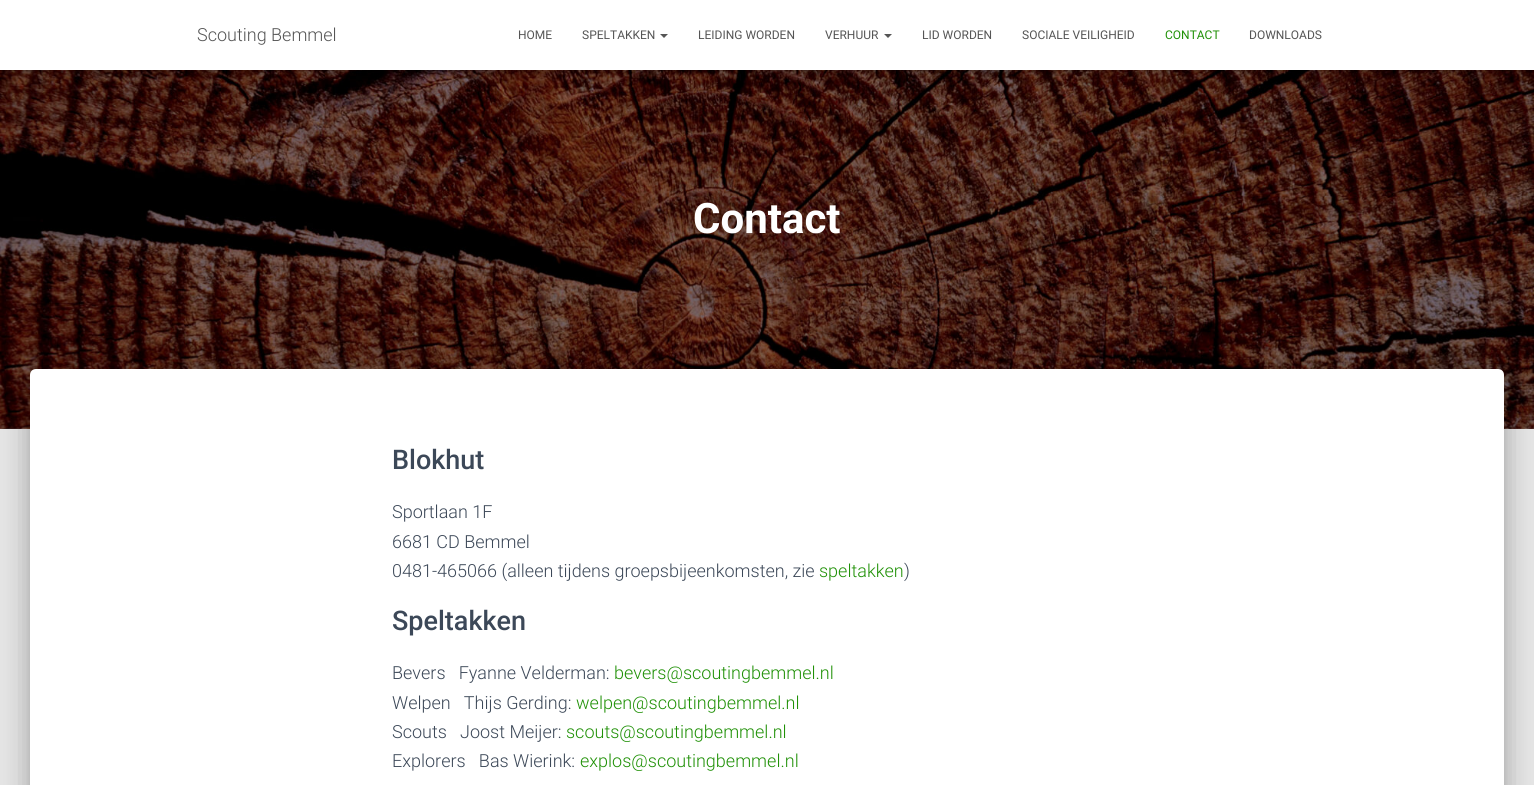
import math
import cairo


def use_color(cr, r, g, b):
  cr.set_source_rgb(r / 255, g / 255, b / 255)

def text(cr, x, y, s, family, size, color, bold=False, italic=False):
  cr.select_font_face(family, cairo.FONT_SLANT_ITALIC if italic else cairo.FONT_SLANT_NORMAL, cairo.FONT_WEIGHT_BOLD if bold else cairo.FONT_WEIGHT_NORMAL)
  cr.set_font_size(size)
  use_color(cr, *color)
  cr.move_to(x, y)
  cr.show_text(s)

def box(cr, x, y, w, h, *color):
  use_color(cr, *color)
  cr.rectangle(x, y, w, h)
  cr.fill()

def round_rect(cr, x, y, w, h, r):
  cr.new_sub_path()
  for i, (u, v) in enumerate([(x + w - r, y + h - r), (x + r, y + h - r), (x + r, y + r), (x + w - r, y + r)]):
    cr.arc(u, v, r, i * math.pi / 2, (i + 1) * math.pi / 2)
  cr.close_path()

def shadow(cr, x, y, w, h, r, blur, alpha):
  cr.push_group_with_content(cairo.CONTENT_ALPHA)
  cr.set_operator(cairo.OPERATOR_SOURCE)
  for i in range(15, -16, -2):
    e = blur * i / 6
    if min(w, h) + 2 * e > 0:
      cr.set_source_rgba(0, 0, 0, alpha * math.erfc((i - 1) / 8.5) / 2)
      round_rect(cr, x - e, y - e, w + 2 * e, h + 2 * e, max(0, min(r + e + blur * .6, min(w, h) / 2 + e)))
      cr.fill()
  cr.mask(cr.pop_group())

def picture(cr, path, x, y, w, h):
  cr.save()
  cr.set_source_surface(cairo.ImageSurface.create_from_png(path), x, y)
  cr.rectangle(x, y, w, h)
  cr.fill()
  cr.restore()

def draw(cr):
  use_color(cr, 229, 229, 229)
  cr.paint()
  picture(cr, "img_01.png", 0, 70, 1534, 359)
  use_color(cr, 0, 0, 0)
  shadow(cr, 2, 6, 1530, 66, 0, 2.5, 0.1)
  shadow(cr, 0, 1, 1534, 70, 0, 5, 0.12)
  shadow(cr, 6, 7, 1522, 58, 0, 5, 0.42)
  box(cr, 0, 0, 1534, 70, 255, 255, 255)
  use_color(cr, 85, 85, 85)
  cr.new_path()
  cr.move_to(660, 34)
  cr.line_to(668, 34)
  cr.line_to(664, 38)
  cr.close_path()
  cr.fill()
  cr.new_path()
  cr.move_to(884, 34)
  cr.line_to(892, 34)
  cr.line_to(888, 38)
  cr.close_path()
  cr.fill()
  use_color(cr, 0, 0, 0)
  shadow(cr, 35, 382, 1464, 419, 1, 5, 0.2)
  shadow(cr, 25, 370, 1484, 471, 11, 15, 0.12)
  shadow(cr, 28, 383, 1478, 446, 8, 12, 0.14)
  use_color(cr, 255, 255, 255)
  cr.new_path()
  cr.move_to(36, 369)
  cr.line_to(1498, 369)
  cr.curve_to(1501.5, 369, 1504, 371.5, 1504, 375)
  cr.line_to(1504, 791)
  cr.line_to(30, 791)
  cr.line_to(30, 375)
  cr.curve_to(30, 371.5, 32.5, 369, 36, 369)
  cr.close_path()
  cr.fill()
  text(cr, 197, 41, "Scouting Bemmel", "Roboto Light", 18, (85, 85, 85))
  text(cr, 518, 39, "HOME", "Roboto", 12, (85, 85, 85))
  text(cr, 582, 39, "SPELTAKKEN", "Roboto", 12, (85, 85, 85))
  text(cr, 698, 39, "LEIDING WORDEN", "Roboto", 12, (85, 85, 85))
  text(cr, 825, 39, "VERHUUR", "Roboto", 12, (85, 85, 85))
  text(cr, 922, 39, "LID WORDEN", "Roboto", 12, (85, 85, 85))
  text(cr, 1022, 39, "SOCIALE VEILIGHEID", "Roboto", 12, (85, 85, 85))
  text(cr, 1165, 39, "CONTACT", "Roboto", 12, (32, 145, 7))
  text(cr, 1249, 39, "DOWNLOADS", "Roboto", 12, (85, 85, 85))
  text(cr, 693, 233, "Contact", "Roboto", 42, (255, 255, 255), bold=True)
  text(cr, 392, 469, "Blokhut", "Roboto Medium", 27, (60, 72, 88))
  text(cr, 392, 518, "Sportlaan 1F", "Roboto Light", 18, (60, 72, 88))
  text(cr, 392, 548, "6681 CD Bemmel", "Roboto Light", 18, (60, 72, 88))
  text(cr, 392, 577, "0481-465066 (alleen tijdens groepsbijeenkomsten, zie", "Roboto Light", 18, (60, 72, 88))
  text(cr, 819, 577, "speltakken", "Roboto Light", 18, (32, 145, 7))
  text(cr, 904, 577, ")", "Roboto Light", 18, (60, 72, 88))
  text(cr, 392, 630, "Speltakken", "Roboto Medium", 27, (60, 72, 88))
  text(cr, 392, 679, "Bevers   Fyanne Velderman:", "Roboto Light", 18, (60, 72, 88))
  text(cr, 614, 679, "bevers@scoutingbemmel.nl", "Roboto Light", 18, (32, 145, 7))
  text(cr, 392, 709, "Welpen   Thijs Gerding:", "Roboto Light", 18, (60, 72, 88))
  text(cr, 576, 709, "welpen@scoutingbemmel.nl", "Roboto Light", 18, (32, 145, 7))
  text(cr, 392, 738, "Scouts   Joost Meijer:", "Roboto Light", 18, (60, 72, 88))
  text(cr, 566, 738, "scouts@scoutingbemmel.nl", "Roboto Light", 18, (32, 145, 7))
  text(cr, 392, 767, "Explorers   Bas Wierink:", "Roboto Light", 18, (60, 72, 88))
  text(cr, 580, 767, "explos@scoutingbemmel.nl", "Roboto Light", 18, (32, 145, 7))


surface = cairo.ImageSurface(cairo.FORMAT_RGB24, 1534, 785)
cr = cairo.Context(surface)
options = cairo.FontOptions()
options.set_hint_metrics(cairo.HINT_METRICS_OFF)
options.set_hint_style(cairo.HINT_STYLE_NONE)
cr.set_font_options(options)
cr.set_miter_limit(4)
draw(cr)
surface.write_to_png("out.png")
